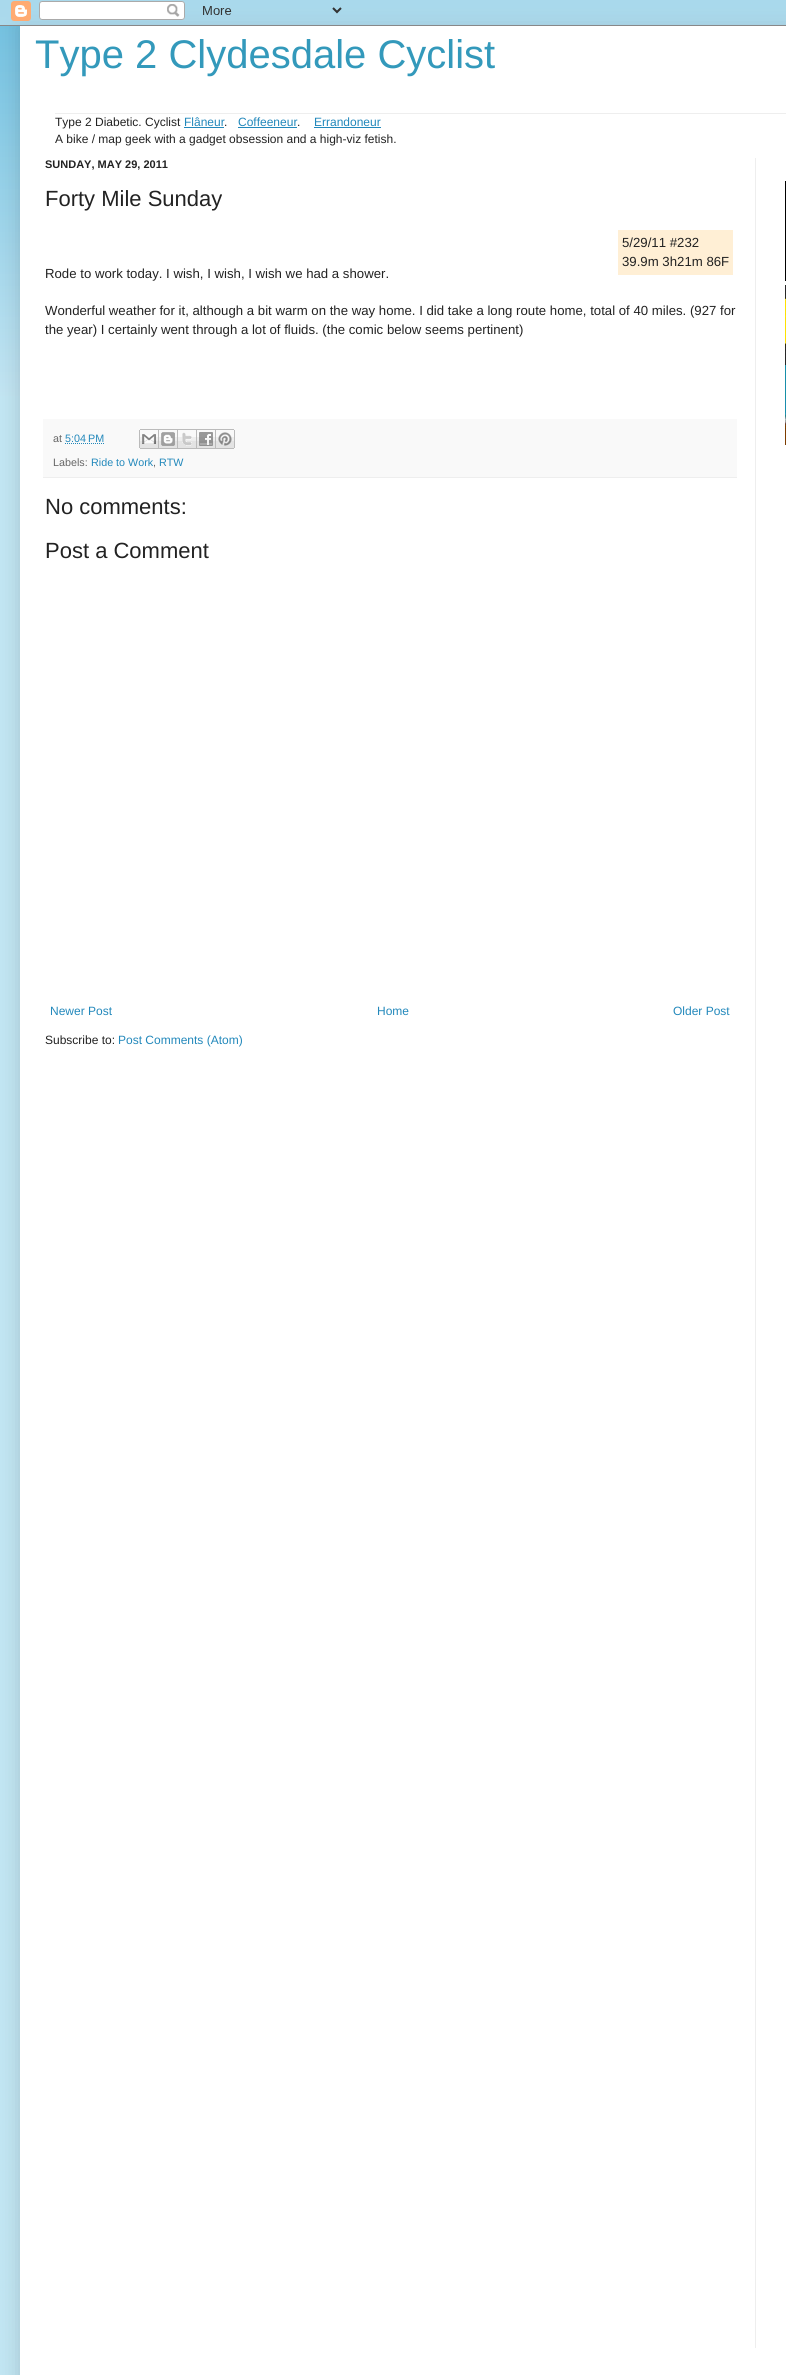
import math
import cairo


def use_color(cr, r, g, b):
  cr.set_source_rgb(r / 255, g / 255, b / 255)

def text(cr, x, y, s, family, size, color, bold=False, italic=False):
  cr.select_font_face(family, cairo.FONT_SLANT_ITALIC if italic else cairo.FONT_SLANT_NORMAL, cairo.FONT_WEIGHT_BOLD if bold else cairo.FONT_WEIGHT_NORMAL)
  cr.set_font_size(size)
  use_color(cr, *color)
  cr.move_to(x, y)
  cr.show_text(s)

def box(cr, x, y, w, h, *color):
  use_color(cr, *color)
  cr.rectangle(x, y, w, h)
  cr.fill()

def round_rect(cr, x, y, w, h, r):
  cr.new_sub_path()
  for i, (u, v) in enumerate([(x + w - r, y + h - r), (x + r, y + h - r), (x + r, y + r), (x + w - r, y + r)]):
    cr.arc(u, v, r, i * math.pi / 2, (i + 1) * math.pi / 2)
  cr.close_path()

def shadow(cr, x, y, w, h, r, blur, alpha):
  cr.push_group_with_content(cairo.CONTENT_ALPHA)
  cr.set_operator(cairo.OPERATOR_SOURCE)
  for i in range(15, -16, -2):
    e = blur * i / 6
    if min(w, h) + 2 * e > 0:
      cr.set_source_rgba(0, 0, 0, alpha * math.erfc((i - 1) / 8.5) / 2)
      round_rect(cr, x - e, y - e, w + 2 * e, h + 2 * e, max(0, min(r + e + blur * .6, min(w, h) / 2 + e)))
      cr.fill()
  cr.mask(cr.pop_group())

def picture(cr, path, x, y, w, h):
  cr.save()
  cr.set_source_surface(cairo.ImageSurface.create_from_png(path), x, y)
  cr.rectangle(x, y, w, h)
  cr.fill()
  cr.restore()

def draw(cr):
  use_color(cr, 193, 229, 242)
  cr.paint()
  box(cr, 0, 0, 786, 396, 102, 187, 221)
  picture(cr, "img_01.png", 0, 0, 786, 396)
  use_color(cr, 0, 0, 0)
  shadow(cr, 20, 26, 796, 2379, 0, 10, 0.15)
  picture(cr, "img_02.png", 0, 0, 786, 26)
  box(cr, 20, 26, 766, 2349, 255, 255, 255)
  box(cr, 55, 113, 731, 1, 238, 238, 238)
  box(cr, 184, 127, 40, 1, 34, 136, 187)
  box(cr, 238, 127, 59, 1, 34, 136, 187)
  box(cr, 314, 127, 67, 1, 34, 136, 187)
  box(cr, 618, 230, 115, 45, 255, 239, 213)
  box(cr, 43, 419, 694, 58, 249, 249, 249)
  box(cr, 43, 477, 694, 1, 238, 238, 238)
  cr.new_path()
  cr.move_to(65, 443.5)
  cr.line_to(104.5, 443.5)
  use_color(cr, 34, 136, 187)
  cr.set_line_width(1)
  cr.set_dash([1, 1])
  cr.stroke()
  picture(cr, "img_03.png", 139, 429, 20, 20)
  picture(cr, "img_04.png", 159, 429, 19, 20)
  picture(cr, "img_05.png", 178, 429, 19, 20)
  picture(cr, "img_06.png", 197, 429, 19, 20)
  picture(cr, "img_07.png", 216, 429, 19, 20)
  box(cr, 785, 181, 1, 100, 0, 0, 0)
  picture(cr, "img_08.png", 785, 285, 1, 80)
  picture(cr, "img_09.png", 785, 365, 1, 80)
  box(cr, 755, 158, 1, 2190, 238, 238, 238)
  text(cr, 35, 68, "Type 2 Clydesdale Cyclist", "Liberation Sans", 40, (51, 153, 187))
  text(cr, 55, 126, "Type 2 Diabetic. Cyclist", "Liberation Sans", 12, (34, 34, 34))
  text(cr, 184, 126, "Flâneur", "Liberation Sans", 12, (34, 136, 187))
  text(cr, 224, 126, ".", "Liberation Sans", 12, (34, 34, 34))
  text(cr, 238, 126, "Coffeeneur", "Liberation Sans", 12, (34, 136, 187))
  text(cr, 297, 126, ".", "Liberation Sans", 12, (34, 34, 34))
  text(cr, 314, 126, "Errandoneur", "Liberation Sans", 12, (34, 136, 187))
  text(cr, 55, 143, "A bike / map geek with a gadget obsession and a high-viz fetish.", "Liberation Sans", 12, (34, 34, 34))
  text(cr, 45, 168, "SUNDAY, MAY 29, 2011", "Liberation Sans", 11, (34, 34, 34), bold=True)
  text(cr, 45, 206, "Forty Mile Sunday", "Liberation Sans", 22, (34, 34, 34))
  text(cr, 622, 247, "5/29/11 #232", "Liberation Sans", 13.2, (34, 34, 34))
  text(cr, 622, 266, "39.9m 3h21m 86F", "Liberation Sans", 13.2, (34, 34, 34))
  text(cr, 45, 278, "Rode to work today. I wish, I wish, I wish we had a shower.", "Liberation Sans", 13.2, (34, 34, 34))
  text(cr, 45, 315, "Wonderful weather for it, although a bit warm on the way home. I did take a long route home, total of 40 miles. (927 for", "Liberation Sans", 13.2, (34, 34, 34))
  text(cr, 45, 334, "the year) I certainly went through a lot of fluids. (the comic below seems pertinent)", "Liberation Sans", 13.2, (34, 34, 34))
  text(cr, 53, 442, "at", "Liberation Sans", 10.75, (102, 102, 102))
  text(cr, 65, 442, "5:04 PM", "Liberation Sans", 10.75, (34, 136, 187))
  text(cr, 53, 466, "Labels:", "Liberation Sans", 10.75, (102, 102, 102))
  text(cr, 91, 466, "Ride to Work", "Liberation Sans", 10.75, (34, 136, 187))
  text(cr, 153, 466, ",", "Liberation Sans", 10.75, (102, 102, 102))
  text(cr, 159, 466, "RTW", "Liberation Sans", 10.75, (34, 136, 187))
  text(cr, 45, 514, "No comments:", "Liberation Sans", 22, (34, 34, 34))
  text(cr, 45, 558, "Post a Comment", "Liberation Sans", 22, (34, 34, 34))
  text(cr, 50, 1015, "Newer Post", "Liberation Sans", 12, (34, 136, 187))
  text(cr, 377, 1015, "Home", "Liberation Sans", 12, (34, 136, 187))
  text(cr, 673, 1015, "Older Post", "Liberation Sans", 12, (34, 136, 187))
  text(cr, 45, 1044, "Subscribe to:", "Liberation Sans", 12, (34, 34, 34))
  text(cr, 118, 1044, "Post Comments (Atom)", "Liberation Sans", 12, (34, 136, 187))


surface = cairo.ImageSurface(cairo.FORMAT_RGB24, 786, 2375)
cr = cairo.Context(surface)
options = cairo.FontOptions()
options.set_hint_metrics(cairo.HINT_METRICS_OFF)
options.set_hint_style(cairo.HINT_STYLE_NONE)
cr.set_font_options(options)
cr.set_miter_limit(4)
draw(cr)
surface.write_to_png("out.png")
